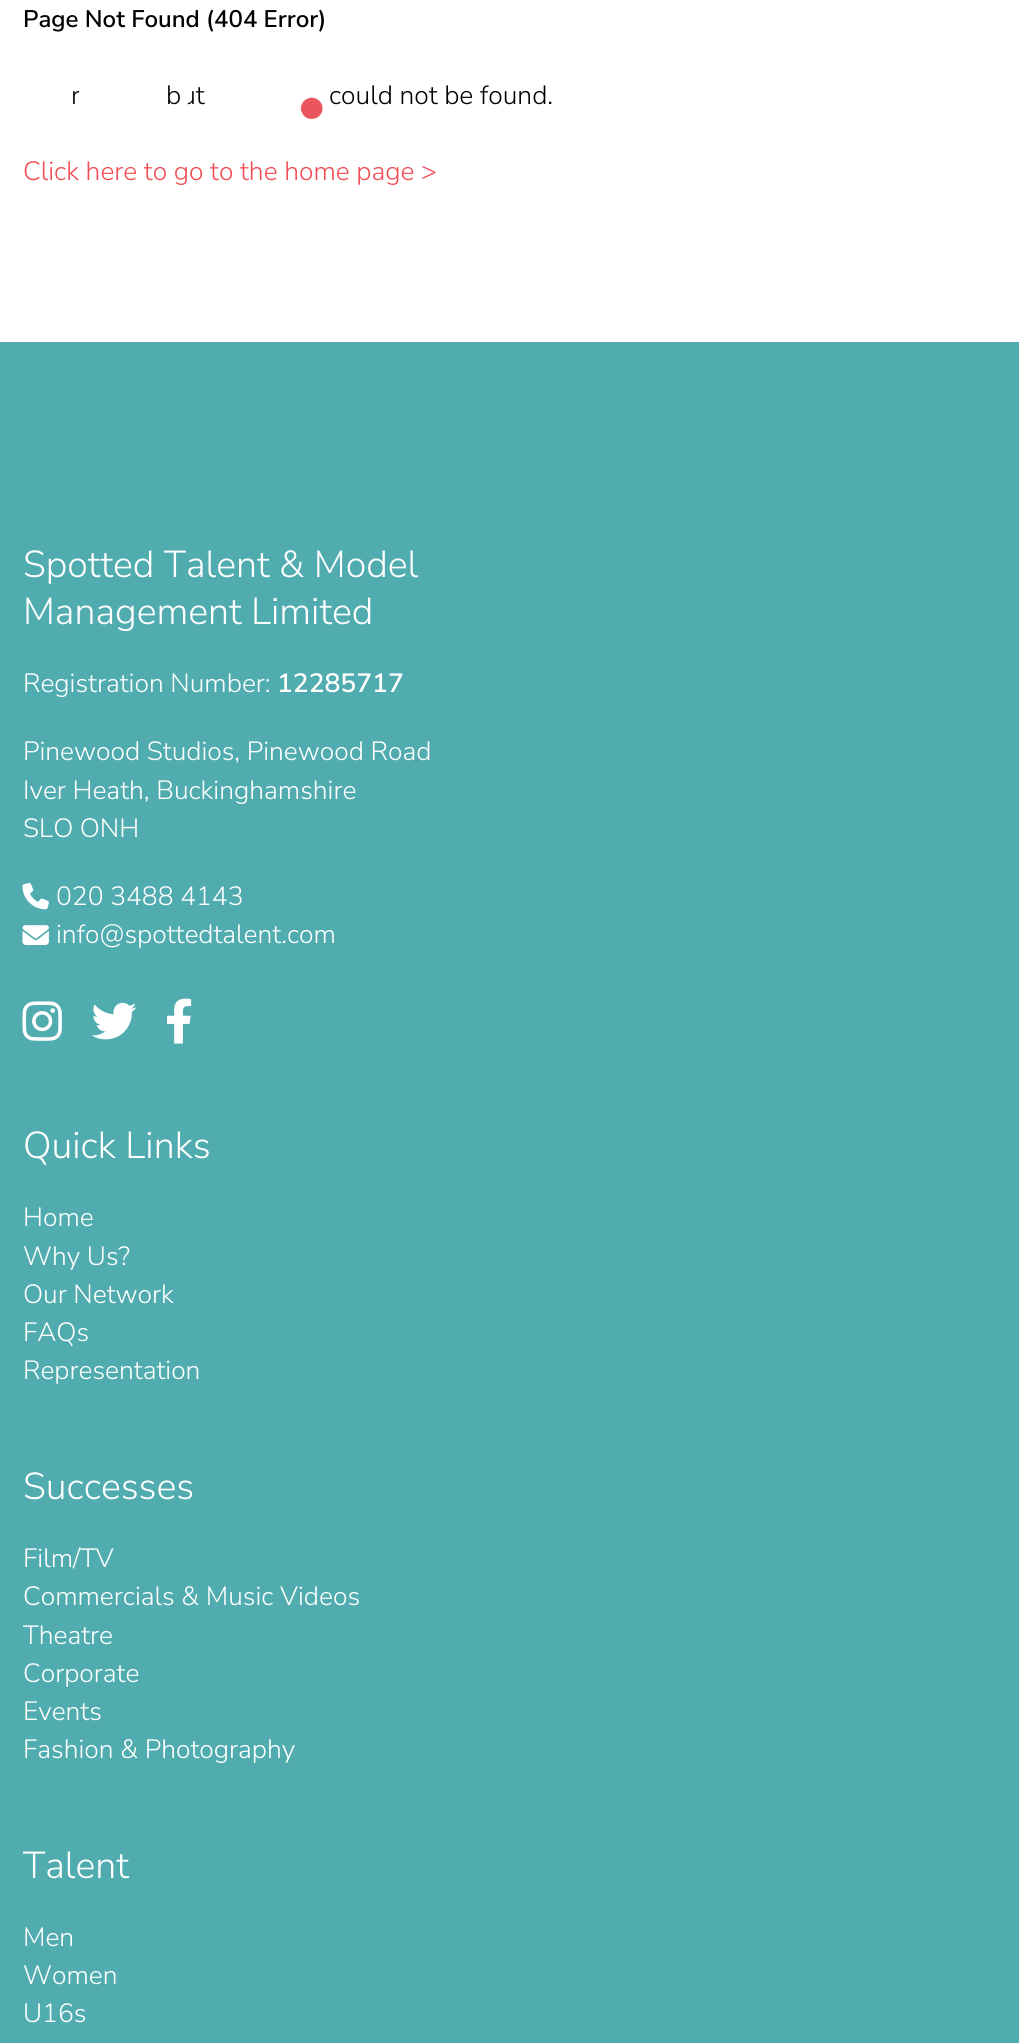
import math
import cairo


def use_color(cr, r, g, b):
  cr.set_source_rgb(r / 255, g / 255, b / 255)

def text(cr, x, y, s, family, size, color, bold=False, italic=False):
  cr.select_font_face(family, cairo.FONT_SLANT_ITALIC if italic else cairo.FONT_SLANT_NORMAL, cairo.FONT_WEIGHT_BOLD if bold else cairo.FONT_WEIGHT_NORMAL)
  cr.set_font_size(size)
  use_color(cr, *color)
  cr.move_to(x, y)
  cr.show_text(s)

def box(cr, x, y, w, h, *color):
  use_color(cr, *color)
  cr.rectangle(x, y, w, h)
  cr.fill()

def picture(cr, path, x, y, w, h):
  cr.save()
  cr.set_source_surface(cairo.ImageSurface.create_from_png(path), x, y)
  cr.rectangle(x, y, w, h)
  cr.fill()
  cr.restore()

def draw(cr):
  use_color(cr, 255, 255, 255)
  cr.paint()
  box(cr, 0, 342, 1019, 1701, 80, 172, 175)
  picture(cr, "img_02.png", 22, 882, 27, 28)
  picture(cr, "img_03.png", 22, 925, 27, 20)
  picture(cr, "img_04.png", 22, 1001, 40, 40)
  picture(cr, "img_05.png", 91, 1002, 46, 38)
  picture(cr, "img_06.png", 167, 998, 25, 46)
  text(cr, 23, 27, "Page Not Found (404 Error)", "Nunito Sans SemiBold", 24, (0, 0, 0))
  text(cr, 71, 104, "r", "Nunito Sans Light", 26.4, (0, 0, 0))
  text(cr, 166, 104, "but", "Nunito Sans Light", 26.4, (0, 0, 0))
  text(cr, 329, 104, "could not be found.", "Nunito Sans Light", 26.4, (0, 0, 0))
  text(cr, 23, 180, "Click here to go to the home page >", "Nunito Sans Light", 26.4, (242, 77, 84))
  picture(cr, "img_01.png", 26, 85, 297, 35)
  text(cr, 23, 577, "Spotted Talent & Model", "Nunito Sans Light", 37.5, (255, 255, 255))
  text(cr, 23, 624, "Management Limited", "Nunito Sans Light", 37.5, (255, 255, 255))
  text(cr, 23, 692, "Registration Number:", "Nunito Sans Light", 26.4, (255, 255, 255))
  text(cr, 277, 692, "12285717", "Nunito Sans SemiBold", 26.4, (255, 255, 255))
  text(cr, 23, 760, "Pinewood Studios, Pinewood Road", "Nunito Sans Light", 26.4, (255, 255, 255))
  text(cr, 23, 799, "Iver Heath, Buckinghamshire", "Nunito Sans Light", 26.4, (255, 255, 255))
  text(cr, 23, 837, "SLO ONH", "Nunito Sans Light", 26.4, (255, 255, 255))
  text(cr, 56, 905, "020 3488 4143", "Nunito Sans Light", 26.4, (255, 255, 255))
  text(cr, 56, 943, "info@spottedtalent.com", "Nunito Sans Light", 26.4, (255, 255, 255))
  text(cr, 23, 1158, "Quick Links", "Nunito Sans Light", 37.5, (255, 255, 255))
  text(cr, 23, 1226, "Home", "Nunito Sans Light", 26.4, (255, 255, 255))
  text(cr, 23, 1265, "Why Us?", "Nunito Sans Light", 26.4, (255, 255, 255))
  text(cr, 23, 1303, "Our Network", "Nunito Sans Light", 26.4, (255, 255, 255))
  text(cr, 23, 1341, "FAQs", "Nunito Sans Light", 26.4, (255, 255, 255))
  text(cr, 23, 1379, "Representation", "Nunito Sans Light", 26.4, (255, 255, 255))
  text(cr, 23, 1499, "Successes", "Nunito Sans Light", 37.5, (255, 255, 255))
  text(cr, 23, 1567, "Film/TV", "Nunito Sans Light", 26.4, (255, 255, 255))
  text(cr, 23, 1605, "Commercials & Music Videos", "Nunito Sans Light", 26.4, (255, 255, 255))
  text(cr, 23, 1644, "Theatre", "Nunito Sans Light", 26.4, (255, 255, 255))
  text(cr, 23, 1682, "Corporate", "Nunito Sans Light", 26.4, (255, 255, 255))
  text(cr, 23, 1720, "Events", "Nunito Sans Light", 26.4, (255, 255, 255))
  text(cr, 23, 1758, "Fashion & Photography", "Nunito Sans Light", 26.4, (255, 255, 255))
  text(cr, 23, 1878, "Talent", "Nunito Sans Light", 37.5, (255, 255, 255))
  text(cr, 23, 1946, "Men", "Nunito Sans Light", 26.4, (255, 255, 255))
  text(cr, 23, 1984, "Women", "Nunito Sans Light", 26.4, (255, 255, 255))
  text(cr, 23, 2022, "U16s", "Nunito Sans Light", 26.4, (255, 255, 255))


surface = cairo.ImageSurface(cairo.FORMAT_RGB24, 1019, 2043)
cr = cairo.Context(surface)
options = cairo.FontOptions()
options.set_hint_metrics(cairo.HINT_METRICS_OFF)
options.set_hint_style(cairo.HINT_STYLE_NONE)
cr.set_font_options(options)
cr.set_miter_limit(4)
draw(cr)
surface.write_to_png("out.png")
